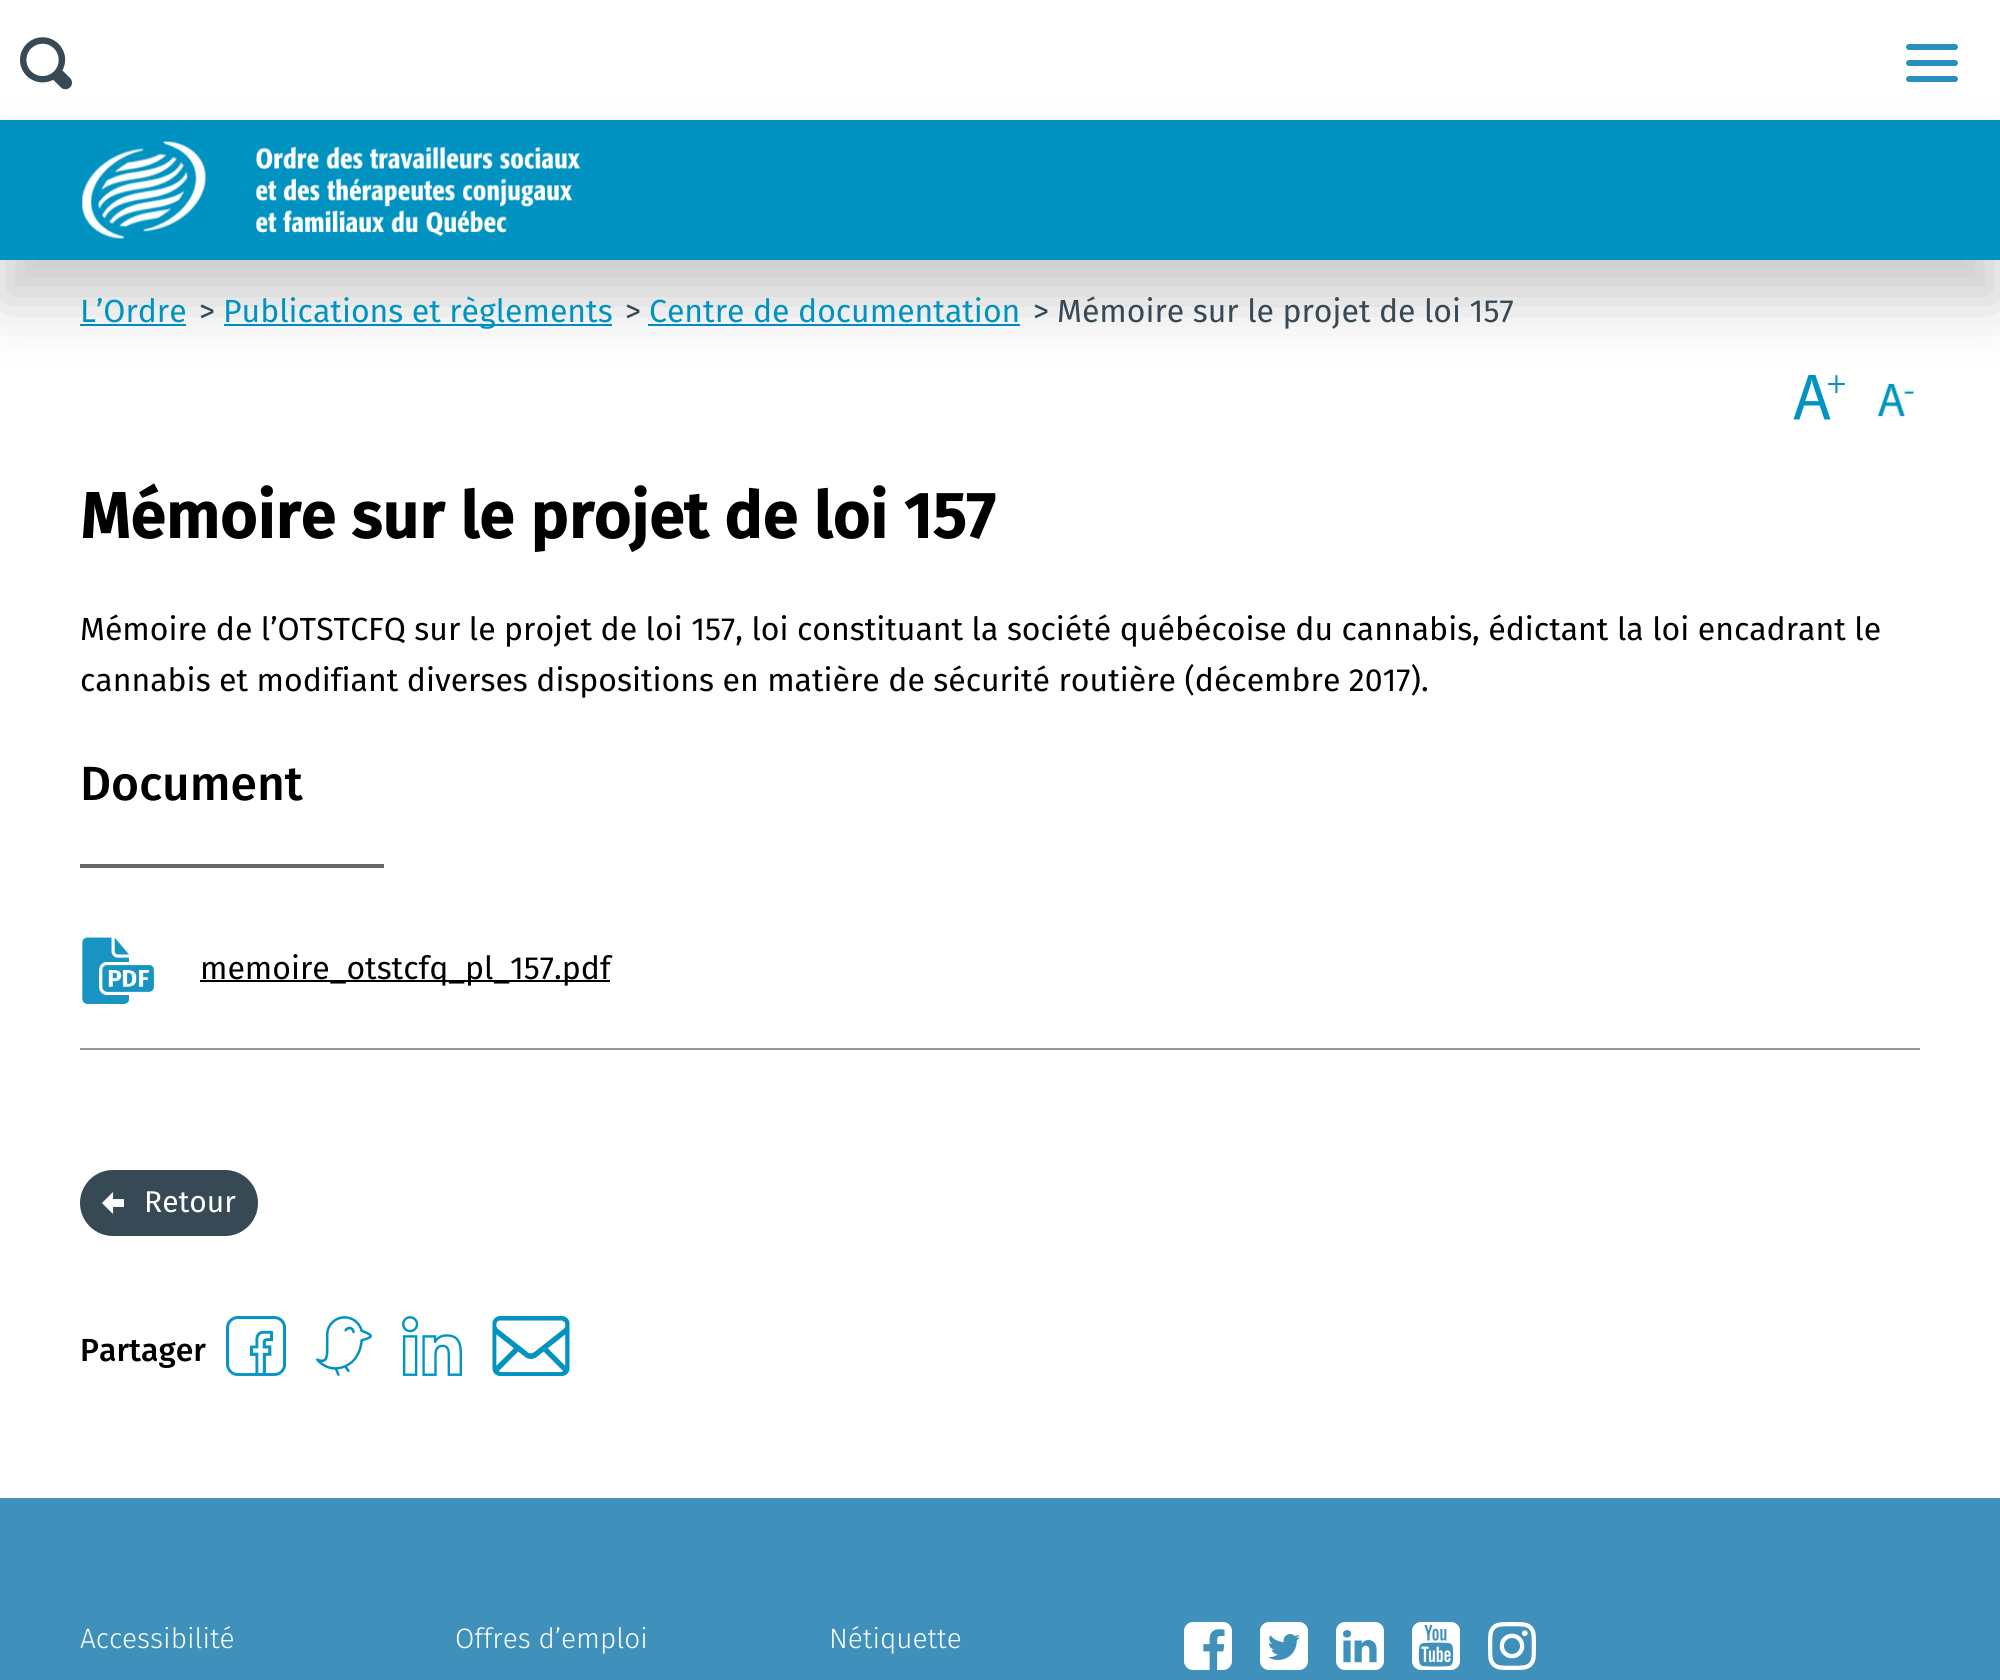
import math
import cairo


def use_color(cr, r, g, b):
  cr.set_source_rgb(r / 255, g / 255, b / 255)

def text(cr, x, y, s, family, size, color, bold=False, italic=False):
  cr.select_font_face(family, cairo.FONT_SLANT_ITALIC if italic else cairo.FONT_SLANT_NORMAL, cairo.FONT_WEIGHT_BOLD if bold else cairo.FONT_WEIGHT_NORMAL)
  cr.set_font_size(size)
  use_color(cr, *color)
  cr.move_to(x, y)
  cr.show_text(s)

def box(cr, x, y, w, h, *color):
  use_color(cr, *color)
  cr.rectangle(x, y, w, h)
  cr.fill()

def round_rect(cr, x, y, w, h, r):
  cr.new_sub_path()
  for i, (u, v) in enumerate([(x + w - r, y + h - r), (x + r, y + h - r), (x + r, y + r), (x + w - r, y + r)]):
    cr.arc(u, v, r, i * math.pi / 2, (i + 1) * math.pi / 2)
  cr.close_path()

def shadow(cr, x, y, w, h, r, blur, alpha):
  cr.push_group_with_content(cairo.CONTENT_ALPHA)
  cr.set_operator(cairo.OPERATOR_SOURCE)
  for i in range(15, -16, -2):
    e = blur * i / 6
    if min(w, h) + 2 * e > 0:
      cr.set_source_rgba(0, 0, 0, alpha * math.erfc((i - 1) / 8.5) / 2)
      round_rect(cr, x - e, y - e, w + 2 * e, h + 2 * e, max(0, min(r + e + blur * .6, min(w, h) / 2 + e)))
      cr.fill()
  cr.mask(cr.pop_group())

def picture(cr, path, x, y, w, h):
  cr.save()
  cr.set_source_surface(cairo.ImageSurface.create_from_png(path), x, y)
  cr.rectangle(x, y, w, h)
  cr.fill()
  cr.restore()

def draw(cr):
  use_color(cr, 255, 255, 255)
  cr.paint()
  use_color(cr, 40, 143, 190)
  round_rect(cr, 1906, 60, 52, 6, 3)
  cr.fill()
  round_rect(cr, 1906, 44, 52, 6, 3)
  cr.fill()
  picture(cr, "img_01.png", 20, 37, 52, 53)
  box(cr, 80, 324, 106, 2, 0, 147, 193)
  box(cr, 224, 324, 388, 2, 0, 147, 193)
  box(cr, 648, 324, 372, 2, 0, 147, 193)
  picture(cr, "img_03.png", 1793, 375, 52, 45)
  picture(cr, "img_04.png", 1878, 383, 37, 34)
  use_color(cr, 0, 0, 0)
  shadow(cr, 0, 162, 2000, 140, 0, 30, 0.2)
  use_color(cr, 40, 143, 190)
  round_rect(cr, 1906, 76, 52, 6, 3)
  cr.fill()
  box(cr, 0, 120, 2000, 140, 0, 147, 193)
  picture(cr, "img_02.png", 82, 141, 498, 98)
  box(cr, 80, 864, 304, 4, 102, 102, 102)
  box(cr, 80, 1048, 1840, 2, 153, 153, 153)
  picture(cr, "img_05.png", 82, 937, 72, 67)
  box(cr, 200, 980, 410, 2, 0, 0, 0)
  use_color(cr, 54, 73, 84)
  round_rect(cr, 81, 1171, 176, 64, 32)
  cr.fill_preserve()
  cr.stroke()
  picture(cr, "img_06.png", 102, 1192, 22, 22)
  picture(cr, "img_07.png", 226, 1316, 60, 60)
  picture(cr, "img_08.png", 316, 1316, 56, 60)
  picture(cr, "img_09.png", 402, 1316, 60, 60)
  picture(cr, "img_10.png", 492, 1316, 78, 60)
  box(cr, 0, 1498, 2000, 182, 63, 145, 188)
  picture(cr, "img_11.png", 1184, 1622, 48, 48)
  picture(cr, "img_12.png", 1260, 1622, 48, 48)
  picture(cr, "img_13.png", 1336, 1622, 48, 48)
  picture(cr, "img_14.png", 1412, 1622, 48, 48)
  picture(cr, "img_15.png", 1488, 1622, 48, 48)
  text(cr, 80, 322, "L’Ordre", "Fira Sans", 32, (0, 147, 193))
  text(cr, 199, 322, ">", "Fira Sans", 32, (54, 73, 84))
  text(cr, 223, 322, "Publications et règlements", "Fira Sans", 32, (0, 147, 193))
  text(cr, 625, 322, ">", "Fira Sans", 32, (54, 73, 84))
  text(cr, 649, 322, "Centre de documentation", "Fira Sans", 32, (0, 147, 193))
  text(cr, 1033, 322, ">", "Fira Sans", 32, (54, 73, 84))
  text(cr, 1057, 322, "Mémoire sur le projet de loi 157", "Fira Sans", 32, (54, 73, 84))
  text(cr, 80, 538, "Mémoire sur le projet de loi 157", "Fira Sans", 64, (0, 0, 0), bold=True)
  text(cr, 80, 640, "Mémoire de l’OTSTCFQ sur le projet de loi 157, loi constituant la société québécoise du cannabis, édictant la loi encadrant le", "Fira Sans", 32, (0, 0, 0))
  text(cr, 80, 691, "cannabis et modifiant diverses dispositions en matière de sécurité routière (décembre 2017).", "Fira Sans", 32, (0, 0, 0))
  text(cr, 80, 800, "Document", "Fira Sans Medium", 48, (0, 0, 0))
  text(cr, 200, 979, "memoire_otstcfq_pl_157.pdf", "Fira Sans", 32, (0, 0, 0))
  text(cr, 144, 1212, "Retour", "Fira Sans", 30, (255, 255, 255))
  text(cr, 80, 1361, "Partager", "Fira Sans Medium", 32, (0, 0, 0))
  text(cr, 80, 1648, "Accessibilité", "Fira Sans Light", 28, (255, 255, 255))
  text(cr, 455, 1648, "Offres d’emploi", "Fira Sans Light", 28, (255, 255, 255))
  text(cr, 829, 1648, "Nétiquette", "Fira Sans Light", 28, (255, 255, 255))


surface = cairo.ImageSurface(cairo.FORMAT_RGB24, 2000, 1680)
cr = cairo.Context(surface)
options = cairo.FontOptions()
options.set_hint_metrics(cairo.HINT_METRICS_OFF)
options.set_hint_style(cairo.HINT_STYLE_NONE)
cr.set_font_options(options)
cr.set_miter_limit(4)
draw(cr)
surface.write_to_png("out.png")
